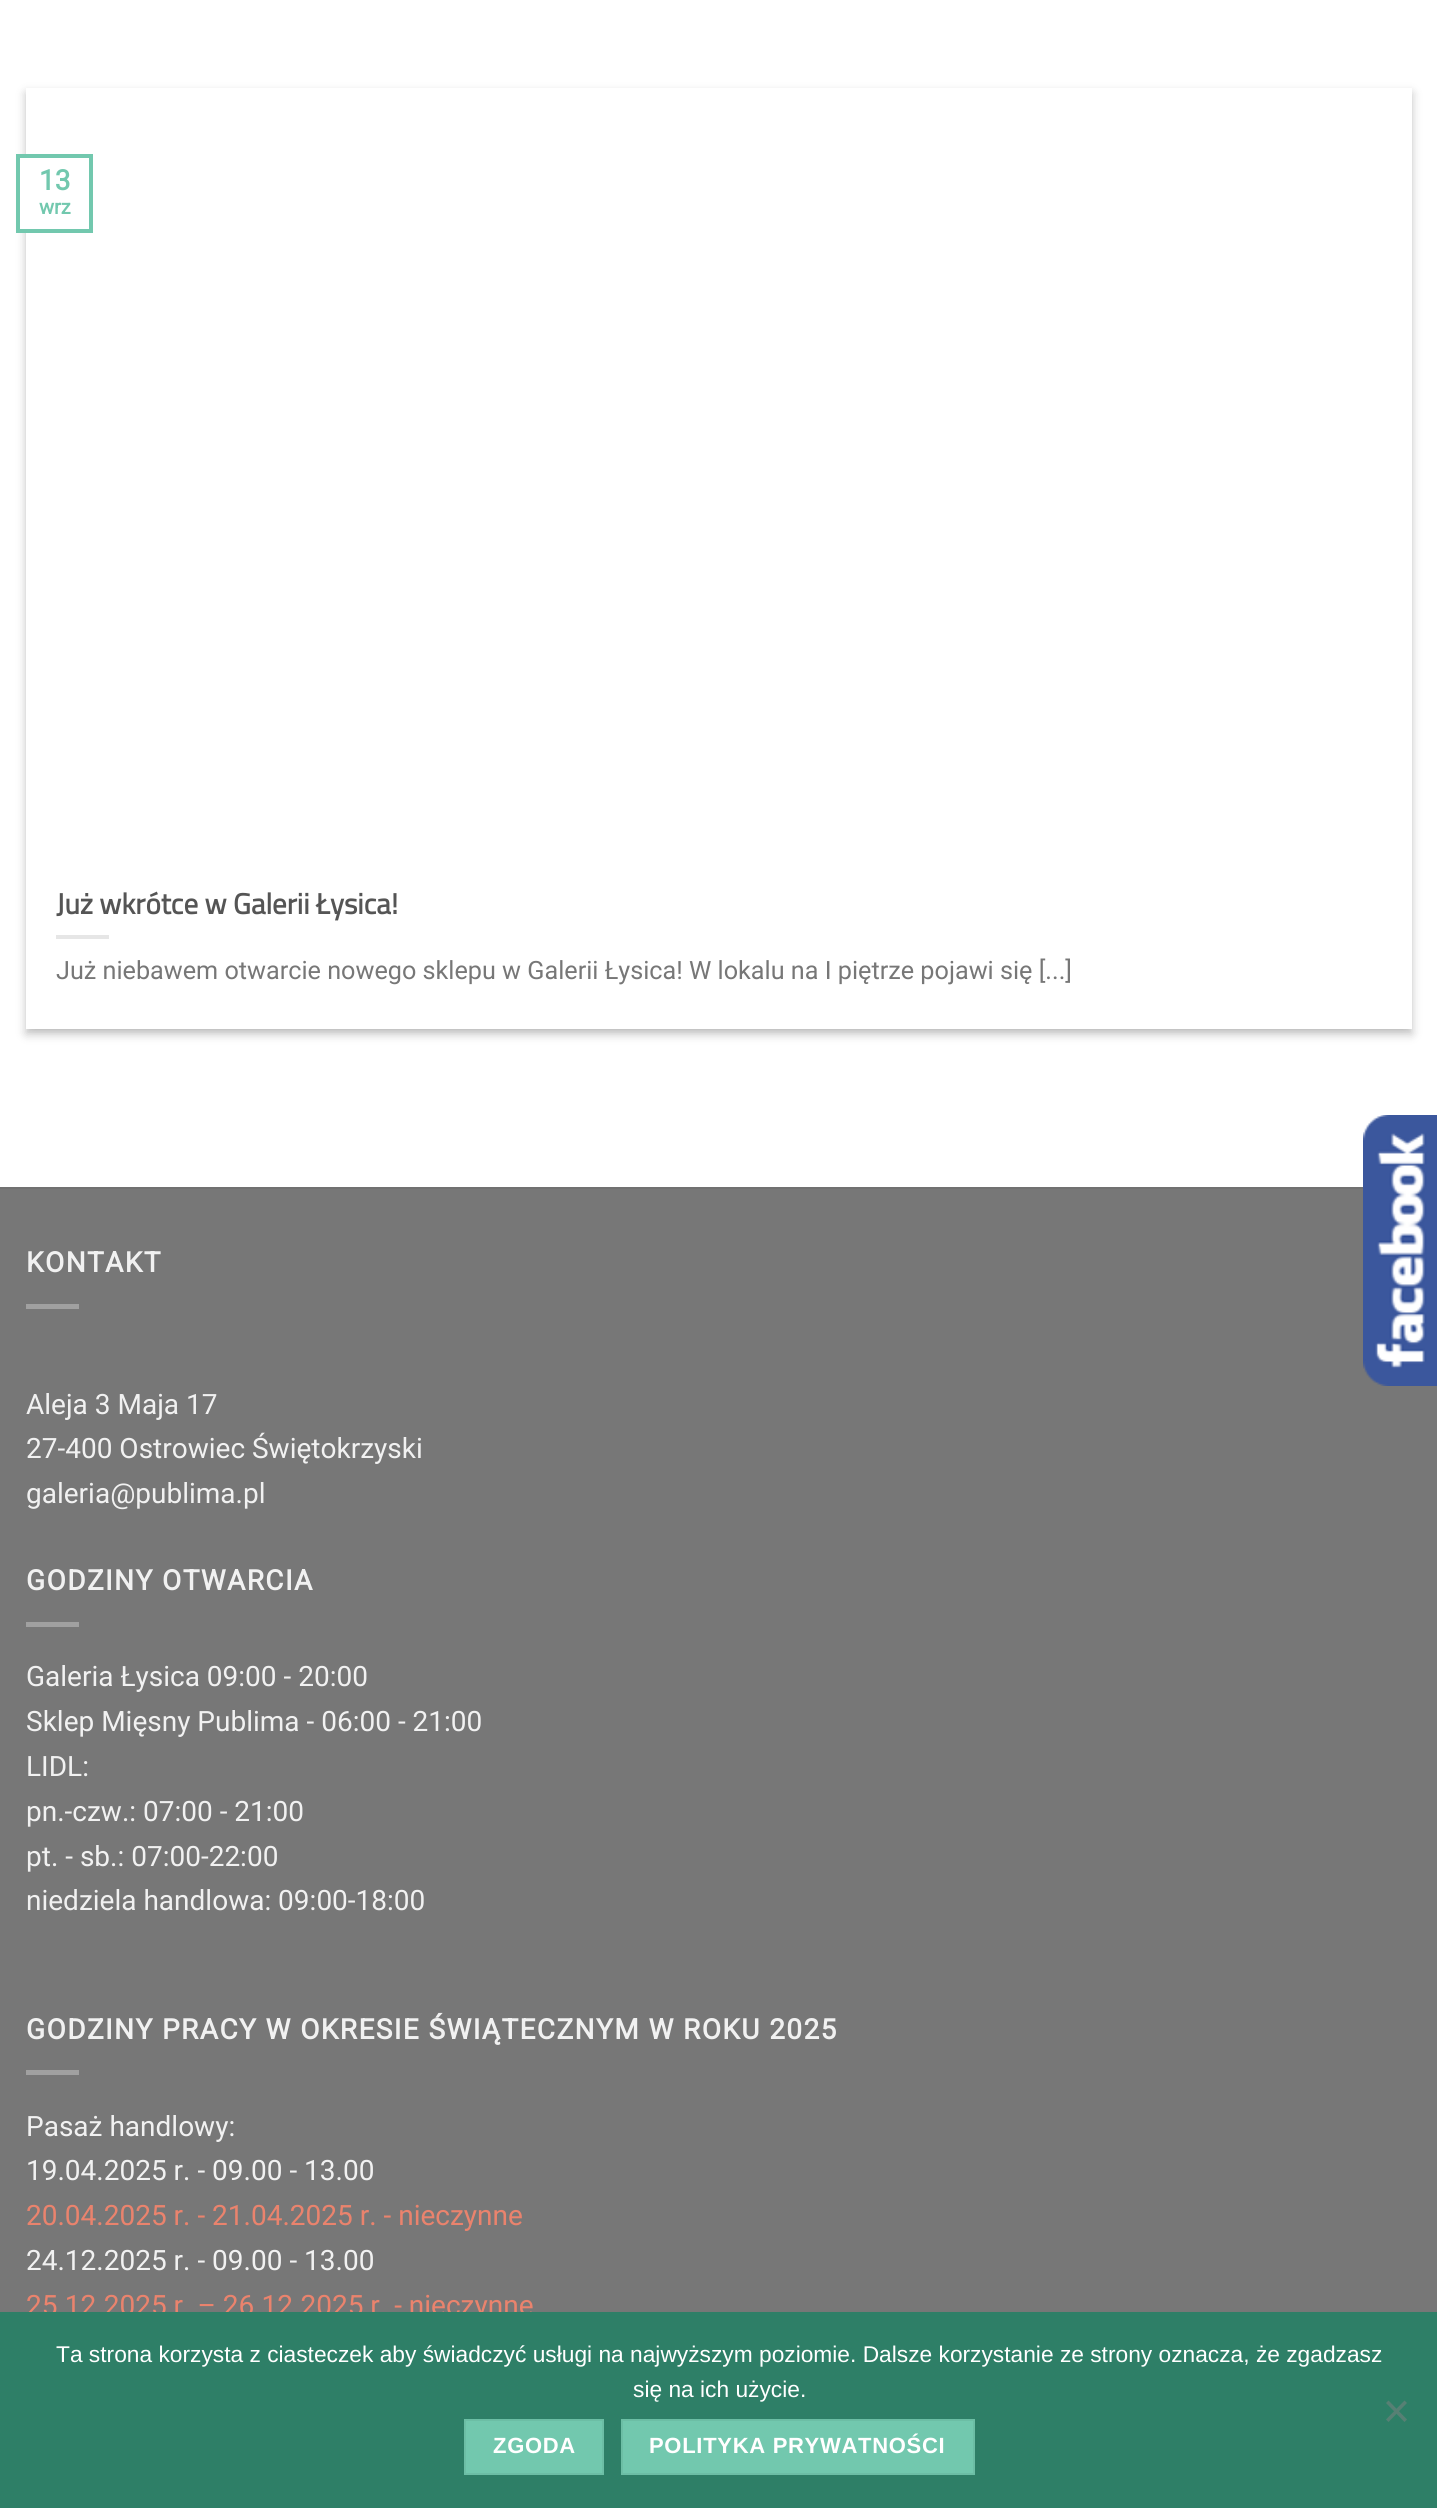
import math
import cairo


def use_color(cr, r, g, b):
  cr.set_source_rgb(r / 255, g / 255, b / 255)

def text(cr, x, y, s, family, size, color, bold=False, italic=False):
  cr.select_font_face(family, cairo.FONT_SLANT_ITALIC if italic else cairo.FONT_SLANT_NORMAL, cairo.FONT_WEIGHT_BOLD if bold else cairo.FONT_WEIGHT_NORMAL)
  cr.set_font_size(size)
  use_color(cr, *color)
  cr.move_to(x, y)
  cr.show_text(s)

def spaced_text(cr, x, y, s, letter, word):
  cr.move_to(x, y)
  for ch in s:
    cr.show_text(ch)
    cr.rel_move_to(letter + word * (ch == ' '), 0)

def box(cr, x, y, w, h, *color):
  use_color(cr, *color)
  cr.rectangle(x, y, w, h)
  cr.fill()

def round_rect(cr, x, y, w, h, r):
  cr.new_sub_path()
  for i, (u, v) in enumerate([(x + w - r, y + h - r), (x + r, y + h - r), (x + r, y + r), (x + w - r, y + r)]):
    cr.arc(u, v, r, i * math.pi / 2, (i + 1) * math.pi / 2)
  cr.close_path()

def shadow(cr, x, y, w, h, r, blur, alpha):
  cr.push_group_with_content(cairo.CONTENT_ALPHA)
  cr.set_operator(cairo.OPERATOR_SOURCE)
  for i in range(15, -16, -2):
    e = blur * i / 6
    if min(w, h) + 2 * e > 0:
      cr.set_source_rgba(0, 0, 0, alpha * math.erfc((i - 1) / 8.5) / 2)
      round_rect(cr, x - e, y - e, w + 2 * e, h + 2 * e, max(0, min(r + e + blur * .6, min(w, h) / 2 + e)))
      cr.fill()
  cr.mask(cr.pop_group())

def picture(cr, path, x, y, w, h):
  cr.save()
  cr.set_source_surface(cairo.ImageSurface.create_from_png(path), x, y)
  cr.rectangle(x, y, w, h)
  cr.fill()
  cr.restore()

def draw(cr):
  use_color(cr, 255, 255, 255)
  cr.paint()
  use_color(cr, 0, 0, 0)
  shadow(cr, 26, 93, 1386, 941, 0, 5, 0.23)
  shadow(cr, 33, 100, 1372, 927, 0, 5, 0.16)
  box(cr, 26, 88, 1386, 941, 255, 255, 255)
  box(cr, 20, 158, 6, 71, 255, 255, 255)
  cr.rectangle(18, 156, 73, 75)
  use_color(cr, 114, 200, 174)
  cr.set_line_width(4)
  cr.stroke()
  box(cr, 56, 935, 53, 4, 230, 230, 230)
  box(cr, 0, 1189, 1437, 1123, 119, 119, 119)
  box(cr, 0, 1187, 1363, 2, 113, 113, 113)
  box(cr, 26, 1304, 53, 5, 160, 160, 160)
  box(cr, 26, 1622, 53, 5, 160, 160, 160)
  box(cr, 26, 2070, 53, 5, 160, 160, 160)
  picture(cr, "img_01.png", 1363, 1115, 74, 271)
  text(cr, 39, 190, "13", "Roboto", 28, (114, 200, 174), bold=True)
  text(cr, 39, 214, "wrz", "Roboto", 20, (114, 200, 174), bold=True)
  text(cr, 56, 914, "Już wkrótce w Galerii Łysica!", "Titillium Web", 29, (85, 85, 85), bold=True)
  text(cr, 56, 979, "Już niebawem otwarcie nowego sklepu w Galerii Łysica! W lokalu na I piętrze pojawi się [...]", "Roboto", 25.2, (119, 119, 119))
  cr.select_font_face("Roboto", cairo.FONT_SLANT_NORMAL, cairo.FONT_WEIGHT_BOLD)
  cr.set_font_size(28)
  use_color(cr, 241, 241, 241)
  spaced_text(cr, 26, 1272, "KONTAKT", 1.4, 0)
  text(cr, 26, 1414, "Aleja 3 Maja 17", "Roboto", 28, (241, 241, 241))
  text(cr, 26, 1458, "27-400 Ostrowiec Świętokrzyski", "Roboto", 28, (241, 241, 241))
  text(cr, 26, 1503, "galeria@publima.pl", "Roboto", 28, (241, 241, 241))
  cr.select_font_face("Roboto", cairo.FONT_SLANT_NORMAL, cairo.FONT_WEIGHT_BOLD)
  spaced_text(cr, 26, 1590, "GODZINY OTWARCIA", 1.4, 0)
  text(cr, 26, 1686, "Galeria Łysica 09:00 - 20:00", "Roboto", 28, (241, 241, 241))
  text(cr, 26, 1731, "Sklep Mięsny Publima - 06:00 - 21:00", "Roboto", 28, (241, 241, 241))
  text(cr, 26, 1776, "LIDL:", "Roboto", 28, (241, 241, 241))
  text(cr, 26, 1821, "pn.-czw.: 07:00 - 21:00", "Roboto", 28, (241, 241, 241))
  text(cr, 26, 1866, "pt. - sb.: 07:00-22:00", "Roboto", 28, (241, 241, 241))
  text(cr, 26, 1910, "niedziela handlowa: 09:00-18:00", "Roboto", 28, (241, 241, 241))
  cr.select_font_face("Roboto", cairo.FONT_SLANT_NORMAL, cairo.FONT_WEIGHT_BOLD)
  spaced_text(cr, 26, 2039, "GODZINY PRACY W OKRESIE ŚWIĄTECZNYM W ROKU 2025", 1.4, 0)
  text(cr, 26, 2136, "Pasaż handlowy:", "Roboto", 28, (241, 241, 241))
  text(cr, 26, 2180, "19.04.2025 r. - 09.00 - 13.00", "Roboto", 28, (241, 241, 241))
  text(cr, 26, 2225, "20.04.2025 r. - 21.04.2025 r. - nieczynne", "Roboto", 28, (234, 131, 109))
  text(cr, 26, 2270, "24.12.2025 r. - 09.00 - 13.00", "Roboto", 28, (241, 241, 241))
  text(cr, 26, 2315, "25.12.2025 r. – 26.12.2025 r. - nieczynne", "Roboto", 28, (234, 131, 109))
  box(cr, 0, 2312, 1437, 196, 46, 127, 103)
  text(cr, 56, 2362, "Ta strona korzysta z ciasteczek aby świadczyć usługi na najwyższym poziomie. Dalsze korzystanie ze strony oznacza, że zgadzasz", "Liberation Sans", 22.75, (255, 255, 255))
  text(cr, 633, 2397, "się na ich użycie.", "Liberation Sans", 22.75, (255, 255, 255))
  use_color(cr, 87, 128, 116)
  cr.new_path()
  cr.move_to(1404.5, 2400.5)
  cr.line_to(1407, 2403)
  cr.line_to(1388.5, 2422)
  cr.line_to(1386, 2419.5)
  cr.close_path()
  cr.fill()
  cr.new_path()
  cr.move_to(1386, 2403)
  cr.line_to(1388.5, 2400.5)
  cr.line_to(1407, 2419.5)
  cr.line_to(1404.5, 2422)
  cr.close_path()
  cr.fill()
  use_color(cr, 114, 200, 174)
  cr.rectangle(465, 2420, 138, 54)
  cr.fill_preserve()
  use_color(cr, 108, 190, 165)
  cr.set_line_width(2)
  cr.stroke()
  cr.select_font_face("Liberation Sans", cairo.FONT_SLANT_NORMAL, cairo.FONT_WEIGHT_BOLD)
  cr.set_font_size(22)
  use_color(cr, 255, 255, 255)
  spaced_text(cr, 493, 2453, "ZGODA", 0.7, 0)
  use_color(cr, 114, 200, 174)
  cr.rectangle(622, 2420, 352, 54)
  cr.fill_preserve()
  use_color(cr, 108, 190, 165)
  cr.stroke()
  use_color(cr, 255, 255, 255)
  spaced_text(cr, 649, 2453, "POLITYKA PRYWATNOŚCI", 0.7, 0)


surface = cairo.ImageSurface(cairo.FORMAT_RGB24, 1437, 2508)
cr = cairo.Context(surface)
options = cairo.FontOptions()
options.set_hint_metrics(cairo.HINT_METRICS_OFF)
options.set_hint_style(cairo.HINT_STYLE_NONE)
cr.set_font_options(options)
cr.set_miter_limit(4)
draw(cr)
surface.write_to_png("out.png")
